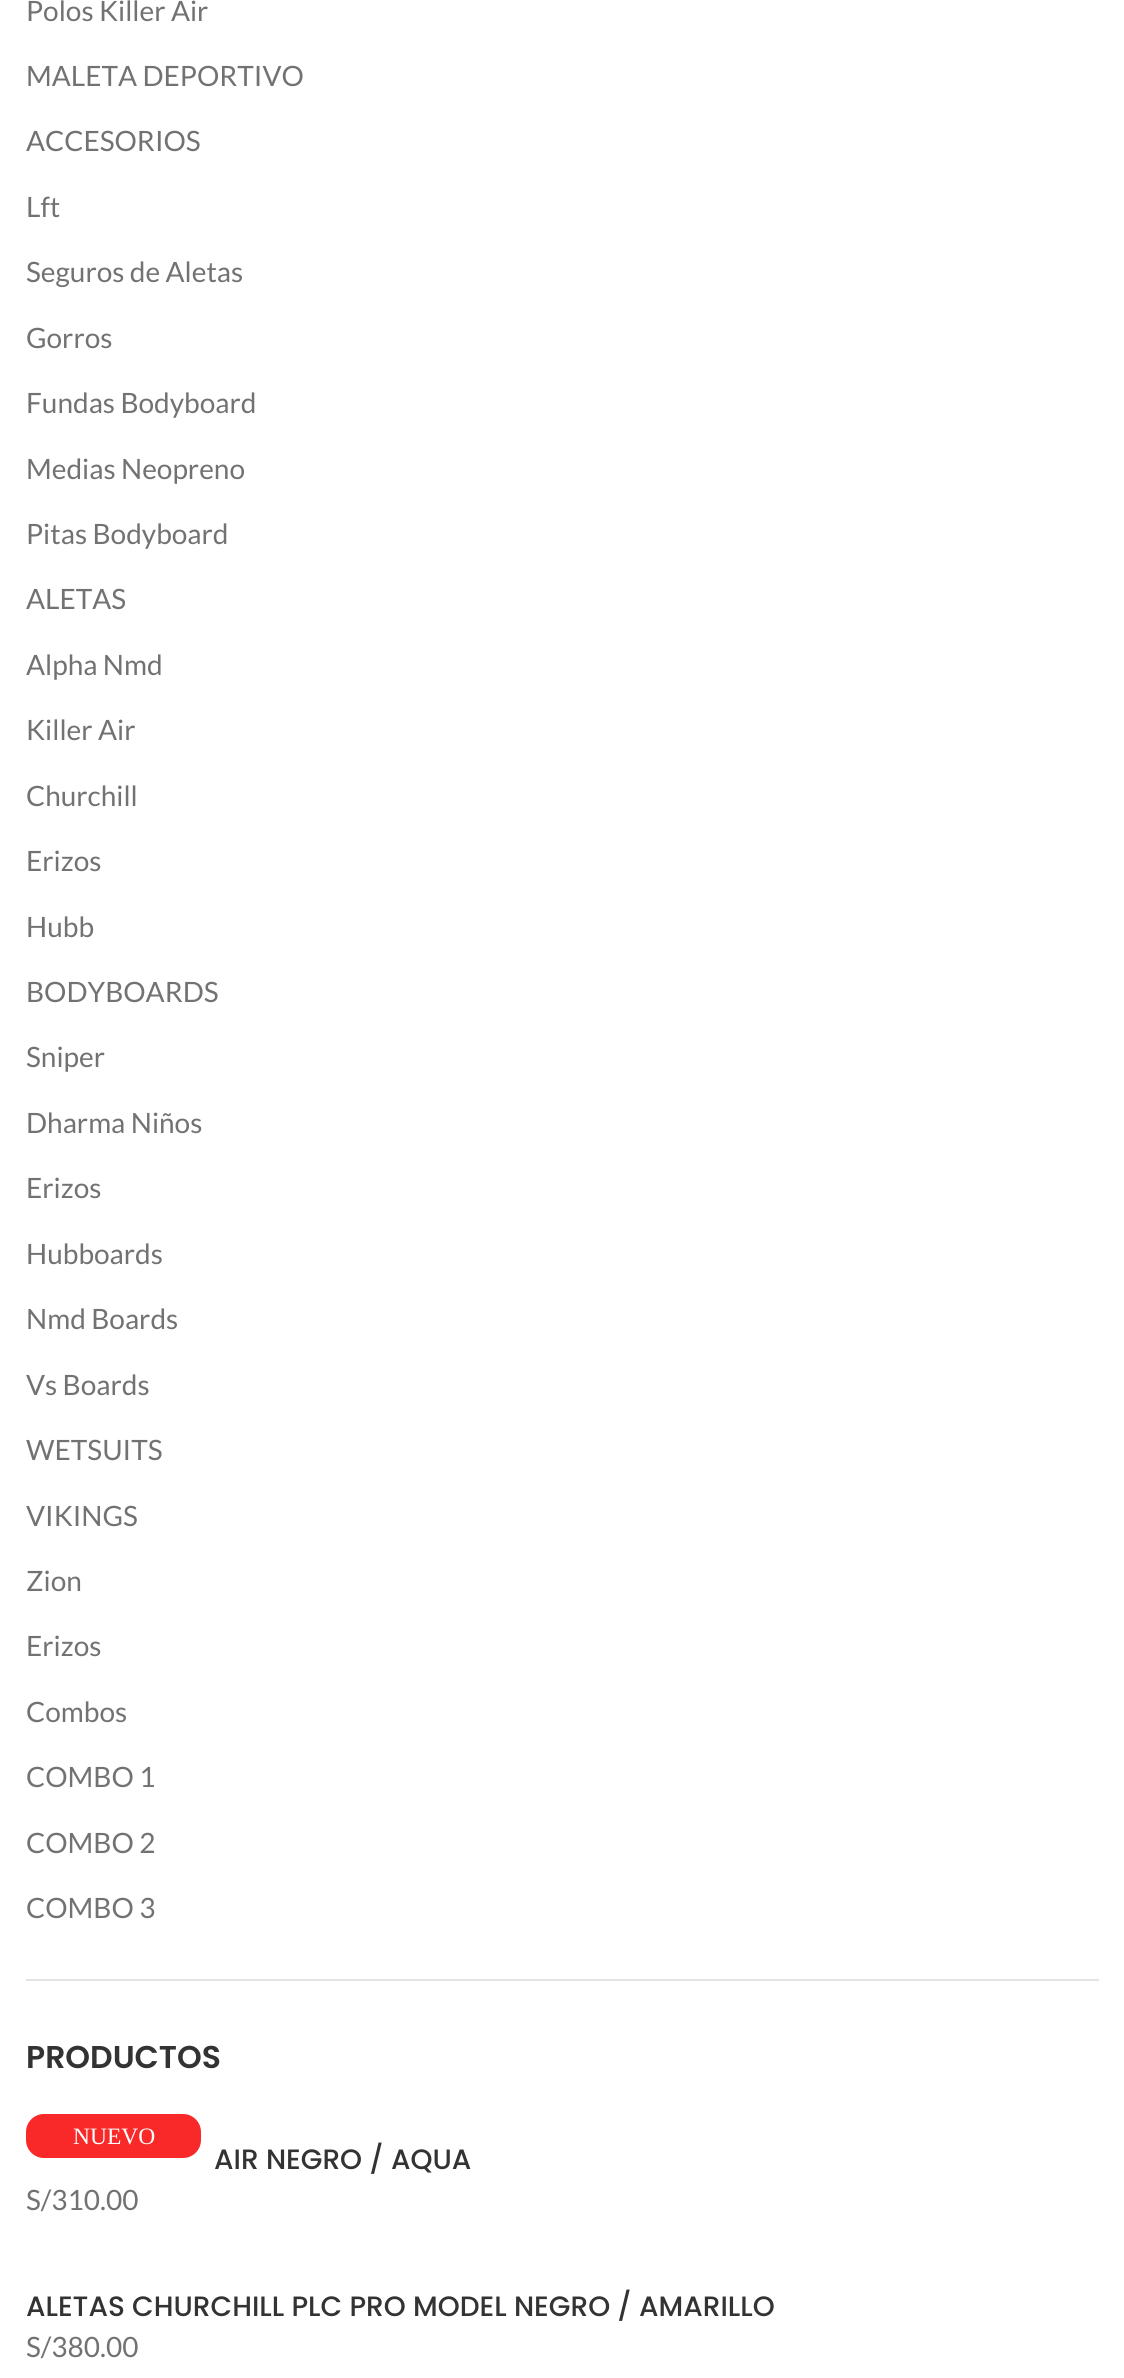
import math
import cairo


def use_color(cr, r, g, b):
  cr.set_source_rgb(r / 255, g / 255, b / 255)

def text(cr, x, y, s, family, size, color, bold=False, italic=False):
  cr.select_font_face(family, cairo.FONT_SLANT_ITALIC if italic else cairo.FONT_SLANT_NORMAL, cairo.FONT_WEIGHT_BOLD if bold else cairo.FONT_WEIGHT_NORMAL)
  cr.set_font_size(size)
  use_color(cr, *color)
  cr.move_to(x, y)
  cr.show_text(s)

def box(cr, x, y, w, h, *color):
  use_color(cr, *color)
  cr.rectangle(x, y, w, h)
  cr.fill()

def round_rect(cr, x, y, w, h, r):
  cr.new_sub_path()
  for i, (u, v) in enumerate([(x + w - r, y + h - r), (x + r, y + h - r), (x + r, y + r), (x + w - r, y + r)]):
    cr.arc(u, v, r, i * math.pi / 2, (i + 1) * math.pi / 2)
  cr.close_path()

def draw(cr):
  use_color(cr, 255, 255, 255)
  cr.paint()
  box(cr, 26, 1979, 1073, 2, 228, 228, 228)
  use_color(cr, 249, 41, 41)
  round_rect(cr, 26, 2114, 175, 44, 18)
  cr.fill()
  text(cr, 26, 21, "Polos Killer Air", "Lato", 28, (114, 114, 114))
  text(cr, 26, 86, "MALETA DEPORTIVO", "Lato", 28, (114, 114, 114))
  text(cr, 26, 151, "ACCESORIOS", "Lato", 28, (114, 114, 114))
  text(cr, 26, 217, "Lft", "Lato", 28, (114, 114, 114))
  text(cr, 26, 282, "Seguros de Aletas", "Lato", 28, (114, 114, 114))
  text(cr, 26, 348, "Gorros", "Lato", 28, (114, 114, 114))
  text(cr, 26, 413, "Fundas Bodyboard", "Lato", 28, (114, 114, 114))
  text(cr, 26, 479, "Medias Neopreno", "Lato", 28, (114, 114, 114))
  text(cr, 26, 544, "Pitas Bodyboard", "Lato", 28, (114, 114, 114))
  text(cr, 26, 609, "ALETAS", "Lato", 28, (114, 114, 114))
  text(cr, 26, 675, "Alpha Nmd", "Lato", 28, (114, 114, 114))
  text(cr, 26, 740, "Killer Air", "Lato", 28, (114, 114, 114))
  text(cr, 26, 806, "Churchill", "Lato", 28, (114, 114, 114))
  text(cr, 26, 871, "Erizos", "Lato", 28, (114, 114, 114))
  text(cr, 26, 937, "Hubb", "Lato", 28, (114, 114, 114))
  text(cr, 26, 1002, "BODYBOARDS", "Lato", 28, (114, 114, 114))
  text(cr, 26, 1067, "Sniper", "Lato", 28, (114, 114, 114))
  text(cr, 26, 1133, "Dharma Niños", "Lato", 28, (114, 114, 114))
  text(cr, 26, 1198, "Erizos", "Lato", 28, (114, 114, 114))
  text(cr, 26, 1264, "Hubboards", "Lato", 28, (114, 114, 114))
  text(cr, 26, 1329, "Nmd Boards", "Lato", 28, (114, 114, 114))
  text(cr, 26, 1395, "Vs Boards", "Lato", 28, (114, 114, 114))
  text(cr, 26, 1460, "WETSUITS", "Lato", 28, (114, 114, 114))
  text(cr, 26, 1526, "VIKINGS", "Lato", 28, (114, 114, 114))
  text(cr, 26, 1591, "Zion", "Lato", 28, (114, 114, 114))
  text(cr, 26, 1656, "Erizos", "Lato", 28, (114, 114, 114))
  text(cr, 26, 1722, "Combos", "Lato", 28, (114, 114, 114))
  text(cr, 26, 1787, "COMBO 1", "Lato", 28, (114, 114, 114))
  text(cr, 26, 1853, "COMBO 2", "Lato", 28, (114, 114, 114))
  text(cr, 26, 1918, "COMBO 3", "Lato", 28, (114, 114, 114))
  text(cr, 26, 2068, "PRODUCTOS", "Poppins SemiBold", 31.5, (51, 51, 51))
  text(cr, 73, 2144, "NUEVO", "Liberation Serif", 23.5, (255, 255, 255))
  text(cr, 214, 2169, "AIR NEGRO / AQUA", "Poppins Medium", 28, (51, 51, 51))
  text(cr, 26, 2210, "S/310.00", "Lato", 28, (114, 114, 114))
  text(cr, 26, 2316, "ALETAS CHURCHILL PLC PRO MODEL NEGRO / AMARILLO", "Poppins Medium", 28, (51, 51, 51))
  text(cr, 26, 2357, "S/380.00", "Lato", 28, (114, 114, 114))


surface = cairo.ImageSurface(cairo.FORMAT_RGB24, 1124, 2378)
cr = cairo.Context(surface)
options = cairo.FontOptions()
options.set_hint_metrics(cairo.HINT_METRICS_OFF)
options.set_hint_style(cairo.HINT_STYLE_NONE)
cr.set_font_options(options)
cr.set_miter_limit(4)
draw(cr)
surface.write_to_png("out.png")
